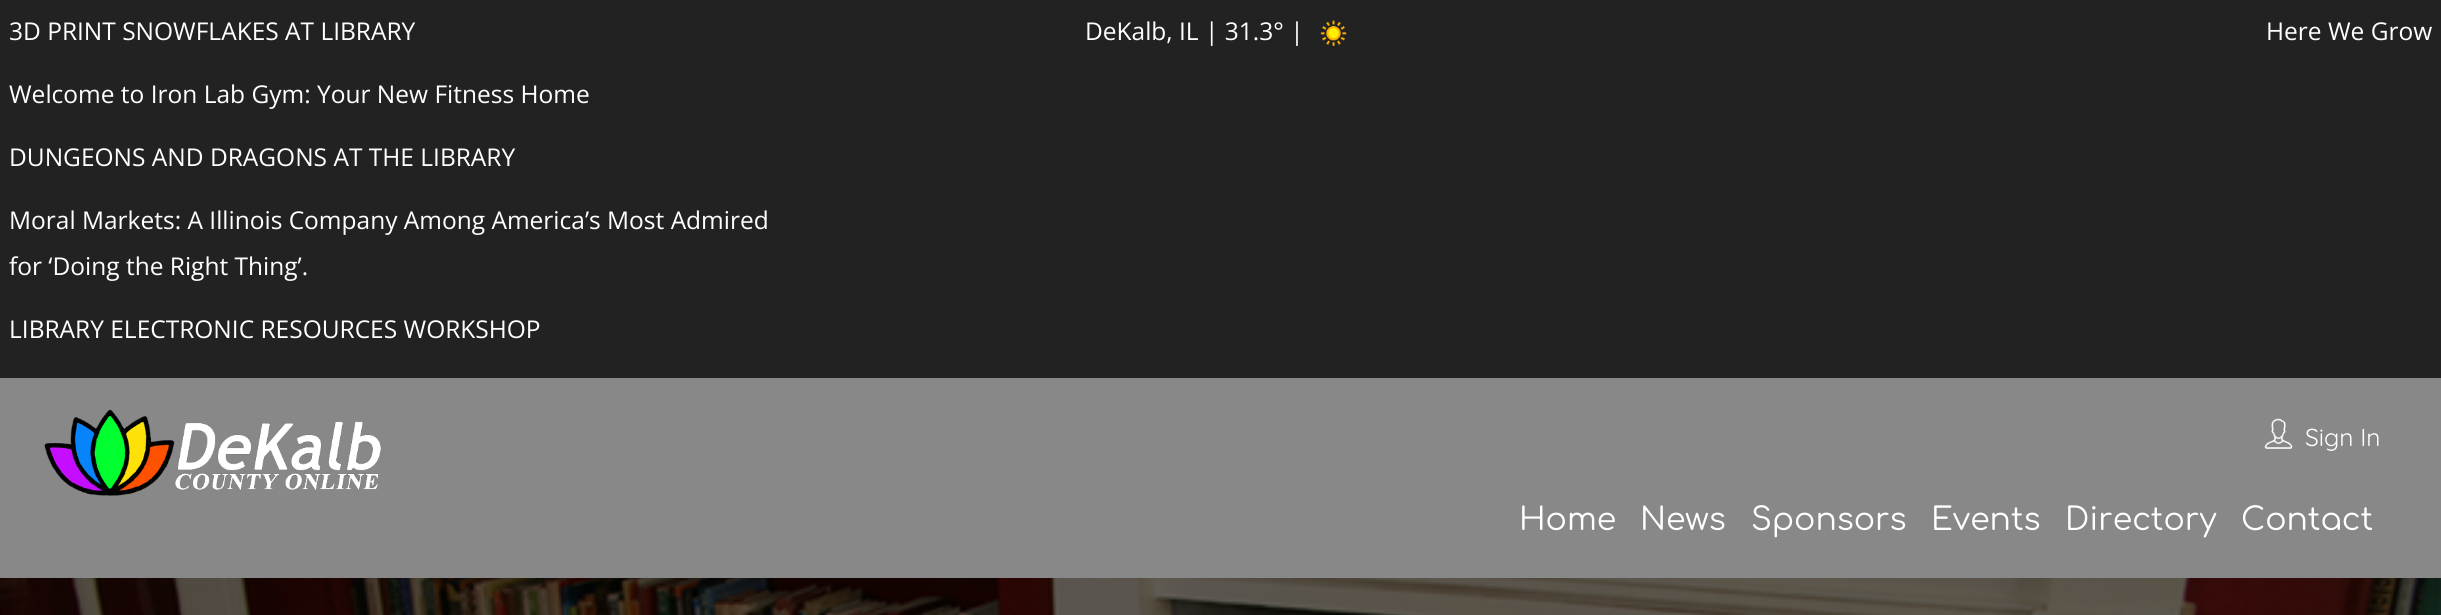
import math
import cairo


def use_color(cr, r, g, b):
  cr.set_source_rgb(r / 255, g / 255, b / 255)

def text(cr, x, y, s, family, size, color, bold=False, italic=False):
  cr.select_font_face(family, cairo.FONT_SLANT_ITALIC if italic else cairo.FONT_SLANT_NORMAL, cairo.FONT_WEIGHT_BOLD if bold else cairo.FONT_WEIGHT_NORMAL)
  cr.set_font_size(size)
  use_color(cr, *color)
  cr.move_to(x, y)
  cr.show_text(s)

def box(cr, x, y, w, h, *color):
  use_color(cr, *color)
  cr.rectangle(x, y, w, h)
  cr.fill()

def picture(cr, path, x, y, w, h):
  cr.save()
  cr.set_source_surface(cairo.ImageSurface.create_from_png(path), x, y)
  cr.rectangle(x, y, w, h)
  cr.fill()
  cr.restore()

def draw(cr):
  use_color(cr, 255, 255, 255)
  cr.paint()
  box(cr, 0, 0, 2441, 378, 34, 34, 34)
  picture(cr, "img_01.png", 1320, 20, 27, 26)
  box(cr, 0, 378, 2441, 200, 136, 136, 136)
  picture(cr, "img_02.png", 44, 409, 337, 87)
  picture(cr, "img_03.png", 2264, 418, 29, 31)
  picture(cr, "img_04.png", 0, 578, 2441, 37)
  text(cr, 9, 40, "3D PRINT SNOWFLAKES AT LIBRARY", "Open Sans", 24.5, (255, 255, 255))
  text(cr, 9, 103, "Welcome to Iron Lab Gym: Your New Fitness Home", "Open Sans", 24.5, (255, 255, 255))
  text(cr, 9, 166, "DUNGEONS AND DRAGONS AT THE LIBRARY", "Open Sans", 24.5, (255, 255, 255))
  text(cr, 9, 229, "Moral Markets: A Illinois Company Among America’s Most Admired", "Open Sans", 24.5, (255, 255, 255))
  text(cr, 9, 275, "for ‘Doing the Right Thing’.", "Open Sans", 24.5, (255, 255, 255))
  text(cr, 9, 338, "LIBRARY ELECTRONIC RESOURCES WORKSHOP", "Open Sans", 24.5, (255, 255, 255))
  text(cr, 1085, 40, "DeKalb, IL | 31.3° |", "Open Sans", 24.5, (255, 255, 255))
  text(cr, 2266, 40, "Here We Grow", "Open Sans", 24.5, (255, 255, 255))
  text(cr, 2305, 446, "Sign In", "Quicksand", 24.5, (255, 255, 255))
  text(cr, 1519, 530, "Home", "Comfortaa", 31.5, (255, 255, 255))
  text(cr, 1640, 530, "News", "Comfortaa", 31.5, (255, 255, 255))
  text(cr, 1751, 530, "Sponsors", "Comfortaa", 31.5, (255, 255, 255))
  text(cr, 1931, 530, "Events", "Comfortaa", 31.5, (255, 255, 255))
  text(cr, 2065, 530, "Directory", "Comfortaa", 31.5, (255, 255, 255))
  text(cr, 2241, 530, "Contact", "Comfortaa", 31.5, (255, 255, 255))


surface = cairo.ImageSurface(cairo.FORMAT_RGB24, 2441, 615)
cr = cairo.Context(surface)
options = cairo.FontOptions()
options.set_hint_metrics(cairo.HINT_METRICS_OFF)
options.set_hint_style(cairo.HINT_STYLE_NONE)
cr.set_font_options(options)
cr.set_miter_limit(4)
draw(cr)
surface.write_to_png("out.png")
